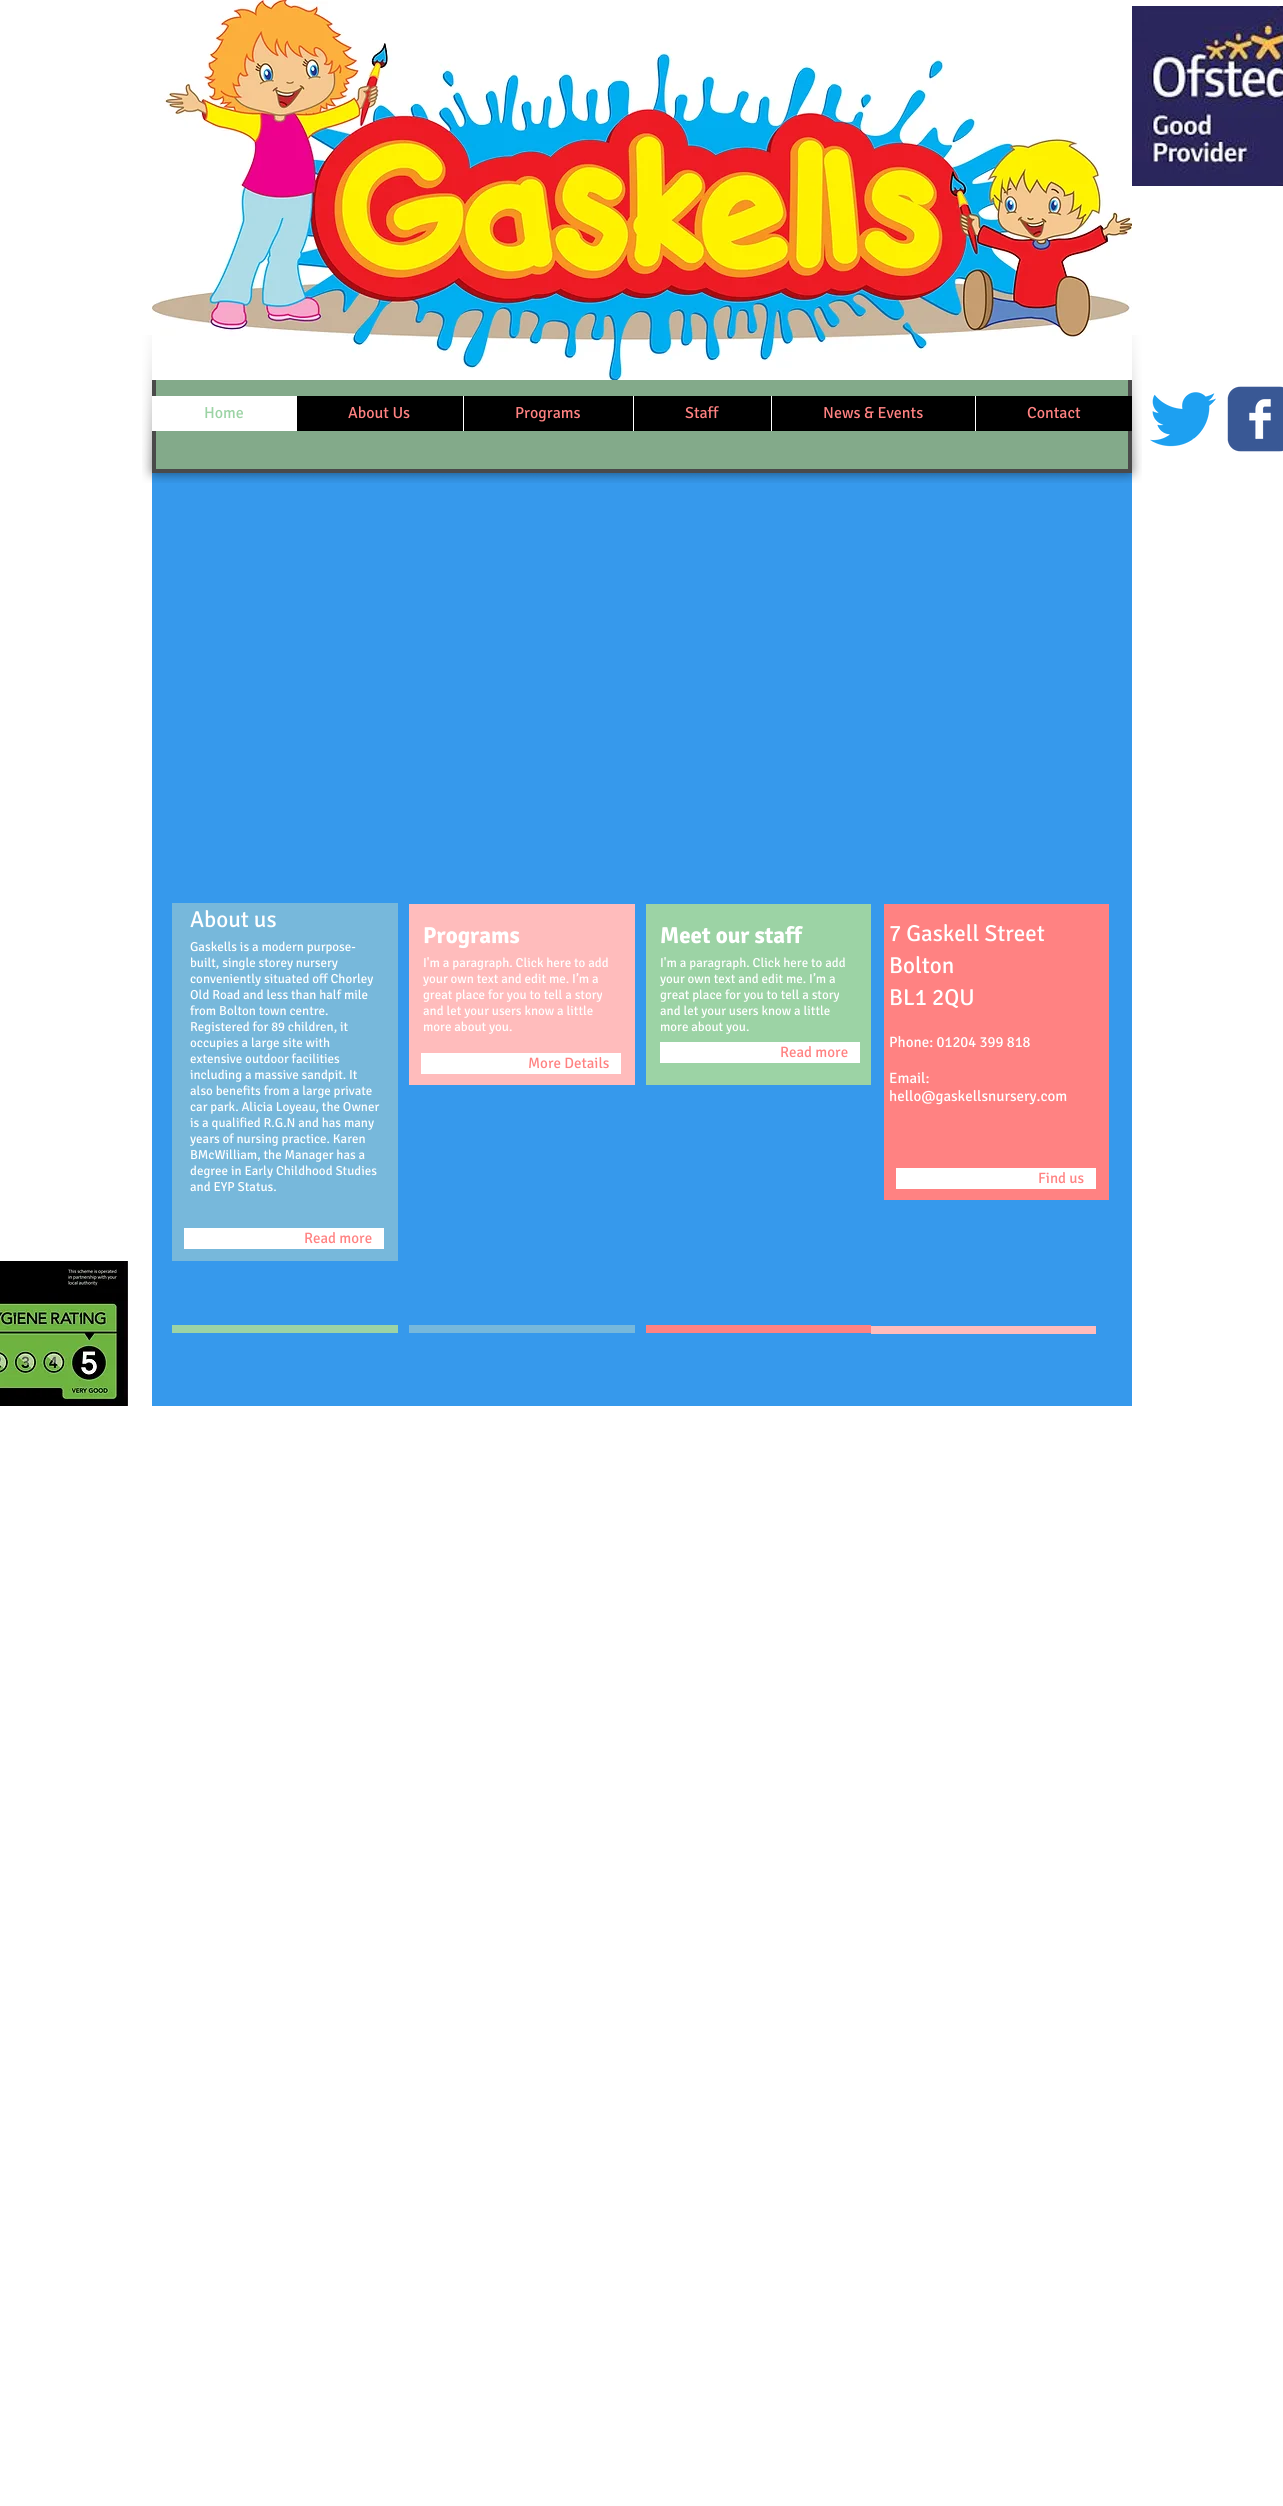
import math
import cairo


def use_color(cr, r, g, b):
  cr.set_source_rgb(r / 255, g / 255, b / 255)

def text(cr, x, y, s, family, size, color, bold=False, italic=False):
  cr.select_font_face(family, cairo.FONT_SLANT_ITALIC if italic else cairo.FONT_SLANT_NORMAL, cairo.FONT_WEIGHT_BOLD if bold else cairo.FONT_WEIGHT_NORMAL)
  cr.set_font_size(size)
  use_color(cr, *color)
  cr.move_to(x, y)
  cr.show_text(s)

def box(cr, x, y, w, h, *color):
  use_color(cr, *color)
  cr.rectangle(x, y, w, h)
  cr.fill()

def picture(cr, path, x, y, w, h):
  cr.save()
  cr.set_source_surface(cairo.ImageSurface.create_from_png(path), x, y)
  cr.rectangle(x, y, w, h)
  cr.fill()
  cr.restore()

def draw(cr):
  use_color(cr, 255, 255, 255)
  cr.paint()
  box(cr, 152, 473, 980, 933, 54, 153, 236)
  picture(cr, "img_01.png", 142, 335, 45, 148)
  picture(cr, "img_02.png", 1097, 335, 45, 148)
  box(cr, 152, 380, 980, 93, 74, 74, 74)
  box(cr, 156, 380, 972, 89, 131, 170, 138)
  picture(cr, "img_03.png", 187, 473, 910, 10)
  picture(cr, "img_04.png", 152, 0, 980, 380)
  picture(cr, "img_05.png", 1132, 6, 151, 180)
  box(cr, 297, 396, 835, 35, 0, 0, 0)
  box(cr, 152, 396, 145, 35, 255, 255, 255)
  box(cr, 463, 396, 1, 35, 255, 255, 255)
  box(cr, 633, 396, 1, 35, 255, 255, 255)
  box(cr, 771, 396, 1, 35, 255, 255, 255)
  box(cr, 975, 396, 1, 35, 255, 255, 255)
  picture(cr, "img_06.png", 1150, 392, 66, 55)
  picture(cr, "img_07.png", 1227, 386, 56, 66)
  box(cr, 172, 903, 226, 358, 119, 184, 219)
  box(cr, 184, 1228, 200, 21, 255, 255, 255)
  box(cr, 409, 904, 226, 181, 255, 188, 188)
  box(cr, 421, 1053, 200, 21, 255, 255, 255)
  box(cr, 646, 904, 225, 181, 156, 211, 165)
  box(cr, 660, 1042, 200, 21, 255, 255, 255)
  box(cr, 884, 904, 225, 296, 255, 130, 130)
  box(cr, 896, 1168, 200, 21, 255, 255, 255)
  picture(cr, "img_08.png", 0, 1261, 128, 145)
  box(cr, 172, 1325, 226, 8, 156, 211, 165)
  box(cr, 409, 1325, 226, 8, 119, 184, 219)
  box(cr, 646, 1325, 225, 8, 255, 130, 130)
  box(cr, 871, 1326, 225, 8, 255, 188, 188)
  text(cr, 204, 418, "Home", "Signika", 16, (156, 211, 165))
  text(cr, 348, 418, "About Us", "Signika", 16, (255, 130, 130))
  text(cr, 515, 418, "Programs", "Signika", 16, (255, 130, 130))
  text(cr, 685, 418, "Staff", "Signika", 16, (255, 130, 130))
  text(cr, 823, 418, "News & Events", "Signika", 16, (255, 130, 130))
  text(cr, 1027, 418, "Contact", "Signika", 16, (255, 130, 130))
  text(cr, 190, 927, "About us", "Signika", 23, (255, 255, 255))
  text(cr, 190, 951, "Gaskells is a modern purpose-", "Signika", 13, (255, 255, 255))
  text(cr, 190, 967, "built, single storey nursery", "Signika", 13, (255, 255, 255))
  text(cr, 190, 983, "conveniently situated off Chorley", "Signika", 13, (255, 255, 255))
  text(cr, 190, 999, "Old Road and less than half mile", "Signika", 13, (255, 255, 255))
  text(cr, 190, 1015, "from Bolton town centre.", "Signika", 13, (255, 255, 255))
  text(cr, 190, 1031, "Registered for 89 children, it", "Signika", 13, (255, 255, 255))
  text(cr, 190, 1047, "occupies a large site with", "Signika", 13, (255, 255, 255))
  text(cr, 190, 1063, "extensive outdoor facilities", "Signika", 13, (255, 255, 255))
  text(cr, 190, 1079, "including a massive sandpit. It", "Signika", 13, (255, 255, 255))
  text(cr, 190, 1095, "also benefits from a large private", "Signika", 13, (255, 255, 255))
  text(cr, 190, 1111, "car park. Alicia Loyeau, the Owner", "Signika", 13, (255, 255, 255))
  text(cr, 190, 1127, "is a qualified R.G.N and has many", "Signika", 13, (255, 255, 255))
  text(cr, 190, 1143, "years of nursing practice. Karen", "Signika", 13, (255, 255, 255))
  text(cr, 190, 1159, "BMcWilliam, the Manager has a", "Signika", 13, (255, 255, 255))
  text(cr, 190, 1175, "degree in Early Childhood Studies", "Signika", 13, (255, 255, 255))
  text(cr, 190, 1191, "and EYP Status.", "Signika", 13, (255, 255, 255))
  text(cr, 304, 1243, "Read more", "Signika", 15, (255, 130, 130))
  text(cr, 423, 943, "Programs", "Signika", 23, (255, 255, 255), bold=True)
  text(cr, 423, 967, "I'm a paragraph. Click here to add", "Signika", 13, (255, 255, 255))
  text(cr, 423, 983, "your own text and edit me. I’m a", "Signika", 13, (255, 255, 255))
  text(cr, 423, 999, "great place for you to tell a story", "Signika", 13, (255, 255, 255))
  text(cr, 423, 1015, "and let your users know a little", "Signika", 13, (255, 255, 255))
  text(cr, 423, 1031, "more about you.", "Signika", 13, (255, 255, 255))
  text(cr, 528, 1068, "More Details", "Signika", 15, (255, 130, 130))
  text(cr, 660, 943, "Meet our staff", "Signika", 23, (255, 255, 255), bold=True)
  text(cr, 660, 967, "I'm a paragraph. Click here to add", "Signika", 13, (255, 255, 255))
  text(cr, 660, 983, "your own text and edit me. I’m a", "Signika", 13, (255, 255, 255))
  text(cr, 660, 999, "great place for you to tell a story", "Signika", 13, (255, 255, 255))
  text(cr, 660, 1015, "and let your users know a little", "Signika", 13, (255, 255, 255))
  text(cr, 660, 1031, "more about you.", "Signika", 13, (255, 255, 255))
  text(cr, 780, 1057, "Read more", "Signika", 15, (255, 130, 130))
  text(cr, 889, 941, "7 Gaskell Street", "Signika", 23, (255, 255, 255))
  text(cr, 889, 973, "Bolton", "Signika", 23, (255, 255, 255))
  text(cr, 889, 1005, "BL1 2QU", "Signika", 23, (255, 255, 255))
  text(cr, 889, 1047, "Phone: 01204 399 818", "Signika", 15, (255, 255, 255))
  text(cr, 889, 1083, "Email:", "Signika", 15, (255, 255, 255))
  text(cr, 889, 1101, "hello@gaskellsnursery.com", "Signika", 15, (255, 255, 255))
  text(cr, 1038, 1183, "Find us", "Signika", 15, (255, 130, 130))


surface = cairo.ImageSurface(cairo.FORMAT_RGB24, 1283, 2506)
cr = cairo.Context(surface)
options = cairo.FontOptions()
options.set_hint_metrics(cairo.HINT_METRICS_OFF)
options.set_hint_style(cairo.HINT_STYLE_NONE)
cr.set_font_options(options)
cr.set_miter_limit(4)
draw(cr)
surface.write_to_png("out.png")
